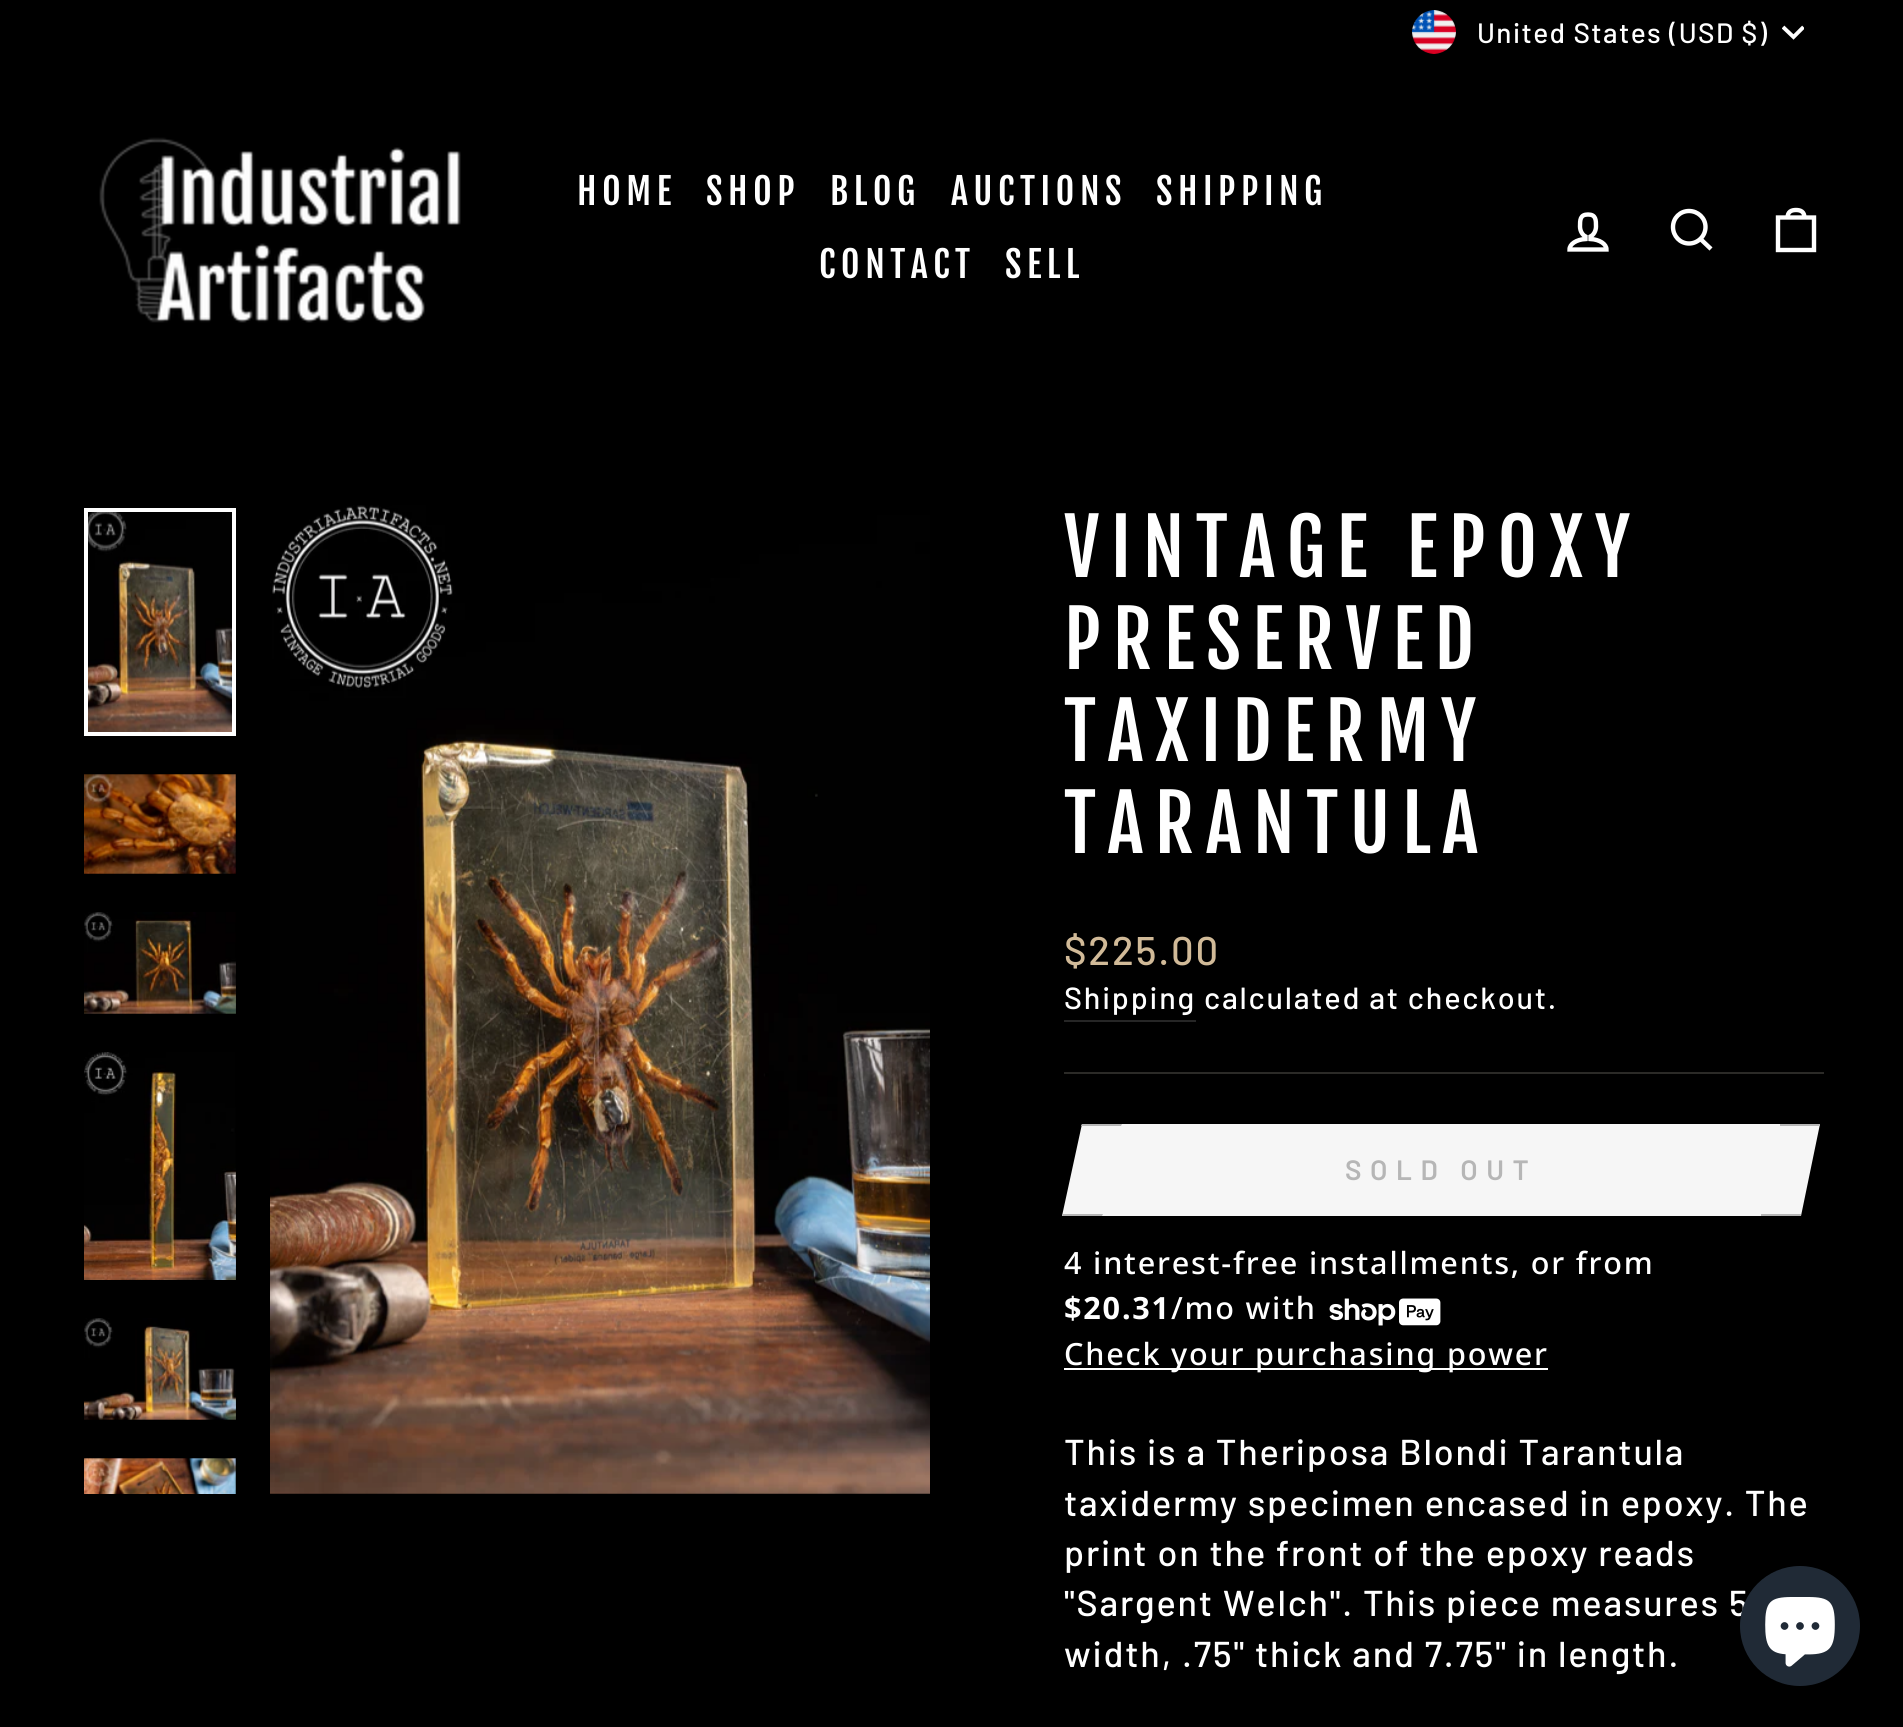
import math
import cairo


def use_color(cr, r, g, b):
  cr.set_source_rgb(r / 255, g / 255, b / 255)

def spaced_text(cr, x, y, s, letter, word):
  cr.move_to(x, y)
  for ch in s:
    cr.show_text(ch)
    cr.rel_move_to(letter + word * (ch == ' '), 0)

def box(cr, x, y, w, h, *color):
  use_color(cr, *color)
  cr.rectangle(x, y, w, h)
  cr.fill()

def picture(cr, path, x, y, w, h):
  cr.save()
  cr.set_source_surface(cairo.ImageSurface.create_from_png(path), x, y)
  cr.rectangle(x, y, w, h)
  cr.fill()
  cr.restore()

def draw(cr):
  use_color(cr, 0, 0, 0)
  cr.paint()
  picture(cr, "img_01.png", 1412, 10, 44, 44)
  cr.save()
  cr.rectangle(1782, 22, 22, 22)
  cr.clip()
  cr.new_path()
  cr.move_to(1783, 27)
  cr.line_to(1793.5, 37)
  cr.line_to(1803.5, 27)
  use_color(cr, 255, 255, 255)
  cr.set_line_width(3.9)
  cr.stroke()
  cr.restore()
  picture(cr, "img_02.png", 99, 137, 362, 186)
  cr.new_path()
  cr.move_to(1590.5, 239)
  cr.line_to(1590.5, 236.5)
  cr.curve_to(1593.5, 235, 1596, 231, 1596, 226.5)
  cr.curve_to(1596, 220, 1596, 214.5, 1588, 214.5)
  cr.curve_to(1580, 214.5, 1580, 220, 1580, 226.5)
  cr.curve_to(1580, 231, 1582.5, 235, 1585.5, 236.5)
  cr.line_to(1585.5, 239)
  cr.curve_to(1576.5, 239.5, 1569.5, 244, 1569.5, 249.5)
  cr.line_to(1606.5, 249.5)
  cr.curve_to(1606.5, 244, 1599.5, 239.5, 1590.5, 239)
  cr.close_path()
  use_color(cr, 255, 255, 255)
  cr.set_line_width(4.4)
  cr.stroke()
  cr.new_path()
  cr.move_to(1705.5, 227)
  cr.curve_to(1705.5, 236, 1698, 243.5, 1689, 243.5)
  cr.curve_to(1680, 243.5, 1673, 236, 1673, 227)
  cr.curve_to(1673, 218, 1680, 211, 1689, 211)
  cr.curve_to(1698, 211, 1705.5, 218, 1705.5, 227)
  cr.close_path()
  cr.move_to(1711, 249)
  cr.line_to(1700.5, 239)
  cr.stroke()
  cr.new_path()
  cr.move_to(1778, 217.5)
  cr.line_to(1814, 217.5)
  cr.line_to(1814, 250)
  cr.line_to(1778, 250)
  cr.close_path()
  cr.move_to(1787.5, 218)
  cr.curve_to(1787.5, 211.5, 1791.5, 210, 1796, 210)
  cr.curve_to(1800.5, 210, 1804.5, 211.5, 1804.5, 218)
  cr.stroke()
  picture(cr, "img_03.png", 88, 512, 144, 220)
  cr.rectangle(86, 510, 148, 224)
  cr.set_line_width(4)
  cr.stroke()
  picture(cr, "img_04.png", 84, 774, 152, 100)
  picture(cr, "img_05.png", 84, 912, 152, 102)
  picture(cr, "img_06.png", 84, 1052, 152, 228)
  picture(cr, "img_07.png", 84, 1318, 152, 102)
  picture(cr, "img_08.png", 84, 1458, 152, 36)
  picture(cr, "img_09.png", 270, 505, 660, 989)
  box(cr, 1064, 1020, 132, 2, 38, 38, 38)
  box(cr, 1064, 1072, 760, 2, 43, 42, 39)
  box(cr, 1102, 1124, 678, 92, 246, 246, 246)
  cr.new_path()
  cr.move_to(1082, 1124)
  cr.line_to(1122, 1124)
  cr.line_to(1102, 1216)
  cr.line_to(1062, 1216)
  cr.close_path()
  cr.fill()
  use_color(cr, 182, 182, 182)
  cr.new_path()
  cr.move_to(1082, 1124)
  cr.line_to(1122, 1124)
  cr.line_to(1121, 1126)
  cr.line_to(1081, 1126)
  cr.close_path()
  cr.fill()
  cr.new_path()
  cr.move_to(1063, 1214)
  cr.line_to(1103, 1214)
  cr.line_to(1102, 1216)
  cr.line_to(1062, 1216)
  cr.close_path()
  cr.fill()
  use_color(cr, 246, 246, 246)
  cr.new_path()
  cr.move_to(1780, 1124)
  cr.line_to(1820, 1124)
  cr.line_to(1801, 1216)
  cr.line_to(1761, 1216)
  cr.close_path()
  cr.fill()
  box(cr, 1780, 1124, 40, 2, 182, 182, 182)
  box(cr, 1761, 1214, 40, 2, 182, 182, 182)
  picture(cr, "img_10.png", 1329, 1298, 112, 28)
  box(cr, 1064, 1368, 484, 2, 255, 255, 255)
  cr.select_font_face("Barlow Medium")
  cr.set_font_size(28)
  spaced_text(cr, 1477, 43, "United States (USD $)", 1.4, 0)
  cr.select_font_face("Fjalla One")
  cr.set_font_size(36)
  spaced_text(cr, 577, 205, "HOME", 5.5, 0)
  spaced_text(cr, 706, 205, "SHOP", 5.5, 0)
  spaced_text(cr, 830, 205, "BLOG", 5.5, 0)
  spaced_text(cr, 951, 205, "AUCTIONS", 5.5, 0)
  spaced_text(cr, 1156, 205, "SHIPPING", 5.5, 0)
  spaced_text(cr, 819, 278, "CONTACT", 5.5, 0)
  spaced_text(cr, 1005, 278, "SELL", 5.5, 0)
  cr.set_font_size(76.5)
  spaced_text(cr, 1064, 577, "VINTAGE EPOXY", 11.5, 0)
  spaced_text(cr, 1064, 669, "PRESERVED", 11.5, 0)
  spaced_text(cr, 1064, 761, "TAXIDERMY", 11.5, 0)
  spaced_text(cr, 1064, 853, "TARANTULA", 11.5, 0)
  cr.select_font_face("Barlow Medium")
  cr.set_font_size(40)
  use_color(cr, 209, 186, 152)
  spaced_text(cr, 1064, 965, "$225.00", 1.8, 0)
  cr.set_font_size(30.6)
  use_color(cr, 255, 255, 255)
  spaced_text(cr, 1064, 1009, "Shipping", 1.8, 0)
  spaced_text(cr, 1204, 1009, "calculated at checkout.", 1.8, 0)
  cr.select_font_face("Barlow SemiBold")
  cr.set_font_size(28)
  use_color(cr, 182, 182, 182)
  spaced_text(cr, 1345, 1180, "SOLD OUT", 8.5, 0)
  cr.select_font_face("Noto Sans Medium")
  cr.set_font_size(30.6)
  use_color(cr, 255, 255, 255)
  spaced_text(cr, 1064, 1274, "4 interest-free installments, or from", 1.8, 0)
  cr.select_font_face("Noto Sans", cairo.FONT_SLANT_NORMAL, cairo.FONT_WEIGHT_BOLD)
  spaced_text(cr, 1064, 1319, "$20.31", 1.8, 0)
  cr.select_font_face("Noto Sans Medium")
  spaced_text(cr, 1171, 1319, "/mo with", 1.8, 0)
  spaced_text(cr, 1064, 1365, "Check your purchasing power", 1.8, 0)
  cr.select_font_face("Barlow Medium")
  cr.set_font_size(36)
  spaced_text(cr, 1064, 1465, "This is a Theriposa Blondi Tarantula", 1.8, 0)
  spaced_text(cr, 1064, 1516, "taxidermy specimen encased in epoxy. The", 1.8, 0)
  spaced_text(cr, 1064, 1566, "print on the front of the epoxy reads", 1.8, 0)
  spaced_text(cr, 1064, 1616, "\"Sargent Welch\". This piece measures 5", 1.8, 0)
  spaced_text(cr, 1064, 1667, "width, .75\" thick and 7.75\" in length.", 1.8, 0)
  use_color(cr, 32, 42, 54)
  cr.new_path()
  cr.arc(1800, 1626, 60, 0, 2 * math.pi)
  cr.fill()
  picture(cr, "img_11.png", 1765, 1597, 70, 70)


surface = cairo.ImageSurface(cairo.FORMAT_RGB24, 1903, 1727)
cr = cairo.Context(surface)
options = cairo.FontOptions()
options.set_hint_metrics(cairo.HINT_METRICS_OFF)
options.set_hint_style(cairo.HINT_STYLE_NONE)
cr.set_font_options(options)
cr.set_miter_limit(4)
draw(cr)
surface.write_to_png("out.png")
